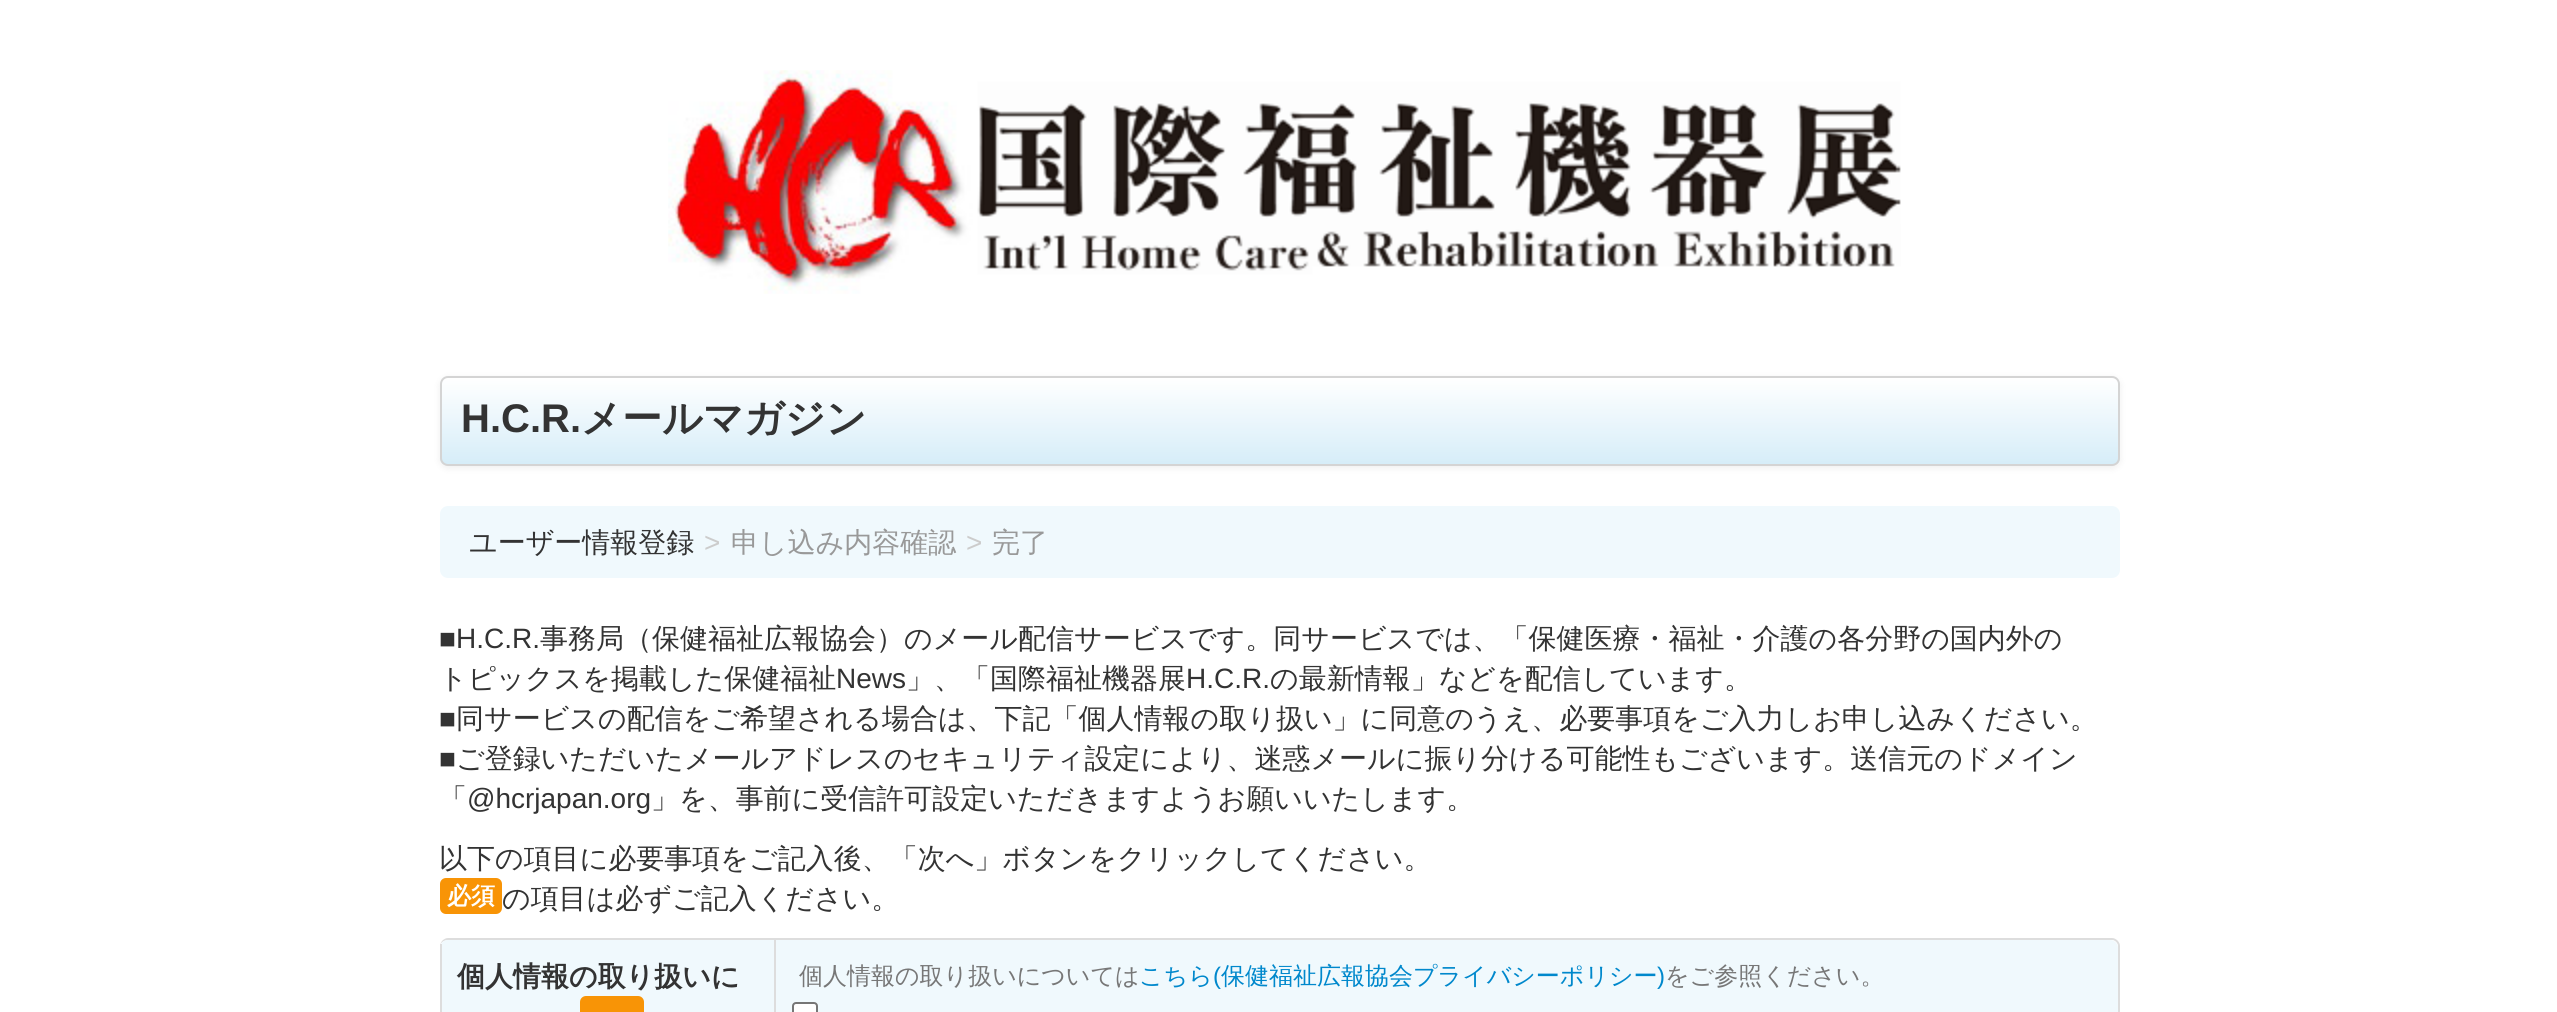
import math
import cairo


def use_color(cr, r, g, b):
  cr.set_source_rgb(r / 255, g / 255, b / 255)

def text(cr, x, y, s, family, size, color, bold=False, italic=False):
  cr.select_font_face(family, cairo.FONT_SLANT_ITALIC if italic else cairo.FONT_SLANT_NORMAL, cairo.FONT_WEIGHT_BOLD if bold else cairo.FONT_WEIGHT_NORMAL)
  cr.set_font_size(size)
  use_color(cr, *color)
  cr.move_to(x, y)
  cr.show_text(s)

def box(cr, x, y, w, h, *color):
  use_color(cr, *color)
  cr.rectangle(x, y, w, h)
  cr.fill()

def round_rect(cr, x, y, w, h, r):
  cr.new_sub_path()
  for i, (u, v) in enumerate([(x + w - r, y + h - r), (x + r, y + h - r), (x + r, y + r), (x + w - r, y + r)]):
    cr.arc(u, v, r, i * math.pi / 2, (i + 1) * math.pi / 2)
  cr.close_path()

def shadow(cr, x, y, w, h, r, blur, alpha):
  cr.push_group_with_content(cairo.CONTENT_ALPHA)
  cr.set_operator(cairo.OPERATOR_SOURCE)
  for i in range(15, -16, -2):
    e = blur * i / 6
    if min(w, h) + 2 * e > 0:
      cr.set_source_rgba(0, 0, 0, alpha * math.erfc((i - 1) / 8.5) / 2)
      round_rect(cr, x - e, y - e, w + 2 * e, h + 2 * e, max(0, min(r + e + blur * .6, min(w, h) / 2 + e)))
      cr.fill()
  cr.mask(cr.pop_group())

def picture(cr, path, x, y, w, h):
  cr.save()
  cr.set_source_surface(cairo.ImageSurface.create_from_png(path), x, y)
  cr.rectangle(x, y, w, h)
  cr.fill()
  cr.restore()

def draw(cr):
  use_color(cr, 255, 255, 255)
  cr.paint()
  picture(cr, "img_01.png", 668, 70, 1233, 224)
  use_color(cr, 0, 0, 0)
  shadow(cr, 440, 378, 1680, 90, 8, 4, 0.07)
  cr.save()
  round_rect(cr, 440, 376, 1680, 90, 8)
  cr.clip()
  gradient = cairo.LinearGradient(1280, 378, 1280, 464)
  gradient.add_color_stop_rgba(0, 1, 1, 1, 1)
  gradient.add_color_stop_rgba(1, 0.839, 0.929, 0.973, 1)
  cr.set_source(gradient)
  cr.rectangle(440, 378, 1680, 86)
  cr.fill()
  cr.restore()
  round_rect(cr, 441, 377, 1678, 88, 7)
  use_color(cr, 212, 212, 212)
  cr.stroke()
  use_color(cr, 240, 249, 253)
  round_rect(cr, 440, 506, 1680, 72, 8)
  cr.fill()
  use_color(cr, 248, 148, 6)
  round_rect(cr, 440, 878, 62, 36, 6)
  cr.fill()
  use_color(cr, 221, 221, 221)
  cr.set_fill_rule(cairo.FILL_RULE_EVEN_ODD)
  cr.new_path()
  cr.move_to(448, 938)
  cr.line_to(2112, 938)
  cr.curve_to(2116, 938, 2120, 942, 2120, 946)
  cr.line_to(2120, 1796)
  cr.curve_to(2120, 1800, 2116, 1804, 2112, 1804)
  cr.line_to(448, 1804)
  cr.curve_to(444, 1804, 440, 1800, 440, 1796)
  cr.line_to(440, 946)
  cr.curve_to(440, 942, 444, 938, 448, 938)
  cr.close_path()
  cr.move_to(448, 940)
  cr.line_to(2112, 940)
  cr.curve_to(2115, 940, 2118, 943, 2118, 946)
  cr.line_to(2118, 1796)
  cr.curve_to(2118, 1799, 2115, 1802, 2112, 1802)
  cr.line_to(448, 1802)
  cr.curve_to(444, 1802, 440, 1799, 440, 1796)
  cr.line_to(440, 946)
  cr.curve_to(440, 943, 444, 940, 448, 940)
  cr.close_path()
  cr.fill()
  use_color(cr, 240, 249, 253)
  cr.new_path()
  cr.move_to(448, 940)
  cr.line_to(774, 940)
  cr.line_to(774, 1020)
  cr.line_to(440, 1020)
  cr.line_to(440, 948)
  cr.curve_to(440, 943.5, 443.5, 940, 448, 940)
  cr.close_path()
  cr.fill()
  box(cr, 440, 944, 2, 68, 221, 221, 221)
  use_color(cr, 248, 148, 6)
  round_rect(cr, 580, 996, 64, 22, 6)
  cr.fill()
  use_color(cr, 240, 249, 253)
  cr.new_path()
  cr.move_to(774, 940)
  cr.line_to(2110, 940)
  cr.curve_to(2114.5, 940, 2118, 943.5, 2118, 948)
  cr.line_to(2118, 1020)
  cr.line_to(774, 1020)
  cr.close_path()
  cr.fill()
  box(cr, 774, 940, 2, 72, 221, 221, 221)
  use_color(cr, 255, 255, 255)
  round_rect(cr, 793, 1003, 24, 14, 3)
  cr.fill_preserve()
  use_color(cr, 118, 118, 118)
  cr.stroke()
  text(cr, 461, 432, "H.C.R.", "Liberation Sans", 40, (51, 51, 51), bold=True)
  text(cr, 581, 432, "メールマガジン", "WenQuanYi Zen Hei", 40, (51, 51, 51), bold=True)
  text(cr, 469, 552, "ユーザー情報登録", "WenQuanYi Zen Hei Medium", 28, (51, 51, 51))
  text(cr, 704, 552, ">", "Liberation Sans", 28, (204, 204, 204))
  text(cr, 731, 552, "申し込み内容確認", "WenQuanYi Zen Hei Medium", 28, (153, 153, 153))
  text(cr, 966, 552, ">", "Liberation Sans", 28, (204, 204, 204))
  text(cr, 992, 552, "完了", "WenQuanYi Zen Hei Medium", 28, (153, 153, 153))
  text(cr, 439, 648, "■H.C.R.", "Liberation Sans", 28, (51, 51, 51))
  text(cr, 540, 648, "事務局（保健福祉広報協会）のメール配信サービスです。同サービスでは、「保健医療・福祉・介護の各分野の国内外の", "WenQuanYi Zen Hei Medium", 28, (51, 51, 51))
  text(cr, 439, 688, "トピックスを掲載した保健福祉", "WenQuanYi Zen Hei Medium", 28, (51, 51, 51))
  text(cr, 836, 688, "News", "Liberation Sans", 28, (51, 51, 51))
  text(cr, 906, 688, "」、「国際福祉機器展", "WenQuanYi Zen Hei Medium", 28, (51, 51, 51))
  text(cr, 1186, 688, "H.C.R.", "Liberation Sans", 28, (51, 51, 51))
  text(cr, 1270, 688, "の最新情報」などを配信しています。", "WenQuanYi Zen Hei Medium", 28, (51, 51, 51))
  text(cr, 439, 728, "■", "Liberation Sans", 28, (51, 51, 51))
  text(cr, 456, 728, "同サービスの配信をご希望される場合は、下記「個人情報の取り扱い」に同意のうえ、必要事項をご入力しお申し込みください。", "WenQuanYi Zen Hei Medium", 28, (51, 51, 51))
  text(cr, 439, 768, "■", "Liberation Sans", 28, (51, 51, 51))
  text(cr, 456, 768, "ご登録いただいたメールアドレスのセキュリティ設定により、迷惑メールに振り分ける可能性もございます。送信元のドメイン", "WenQuanYi Zen Hei Medium", 28, (51, 51, 51))
  text(cr, 439, 808, "「", "WenQuanYi Zen Hei Medium", 28, (51, 51, 51))
  text(cr, 467, 808, "@hcrjapan.org", "Liberation Sans", 28, (51, 51, 51))
  text(cr, 651, 808, "」を、事前に受信許可設定いただきますようお願いいたします。", "WenQuanYi Zen Hei Medium", 28, (51, 51, 51))
  text(cr, 439, 868, "以下の項目に必要事項をご記入後、「次へ」ボタンをクリックしてください。", "WenQuanYi Zen Hei Medium", 28, (51, 51, 51))
  text(cr, 447, 904, "必須", "WenQuanYi Zen Hei", 24, (255, 255, 255), bold=True)
  text(cr, 502, 908, "の項目は必ずご記入ください。", "WenQuanYi Zen Hei Medium", 28, (51, 51, 51))
  text(cr, 457, 986, "個人情報の取り扱いに", "WenQuanYi Zen Hei", 28, (51, 51, 51), bold=True)
  text(cr, 799, 984, "個人情報の取り扱いについては", "WenQuanYi Zen Hei Medium", 24, (119, 119, 119))
  text(cr, 1139, 984, "こちら", "WenQuanYi Zen Hei Medium", 24, (0, 136, 204))
  text(cr, 1213, 984, "(", "Liberation Sans", 24, (0, 136, 204))
  text(cr, 1221, 984, "保健福祉広報協会プライバシーポリシー", "WenQuanYi Zen Hei Medium", 24, (0, 136, 204))
  text(cr, 1657, 984, ")", "Liberation Sans", 24, (0, 136, 204))
  text(cr, 1665, 984, "をご参照ください。", "WenQuanYi Zen Hei Medium", 24, (119, 119, 119))


surface = cairo.ImageSurface(cairo.FORMAT_RGB24, 2557, 1012)
cr = cairo.Context(surface)
options = cairo.FontOptions()
options.set_hint_metrics(cairo.HINT_METRICS_OFF)
options.set_hint_style(cairo.HINT_STYLE_NONE)
cr.set_font_options(options)
cr.set_miter_limit(4)
draw(cr)
surface.write_to_png("out.png")
